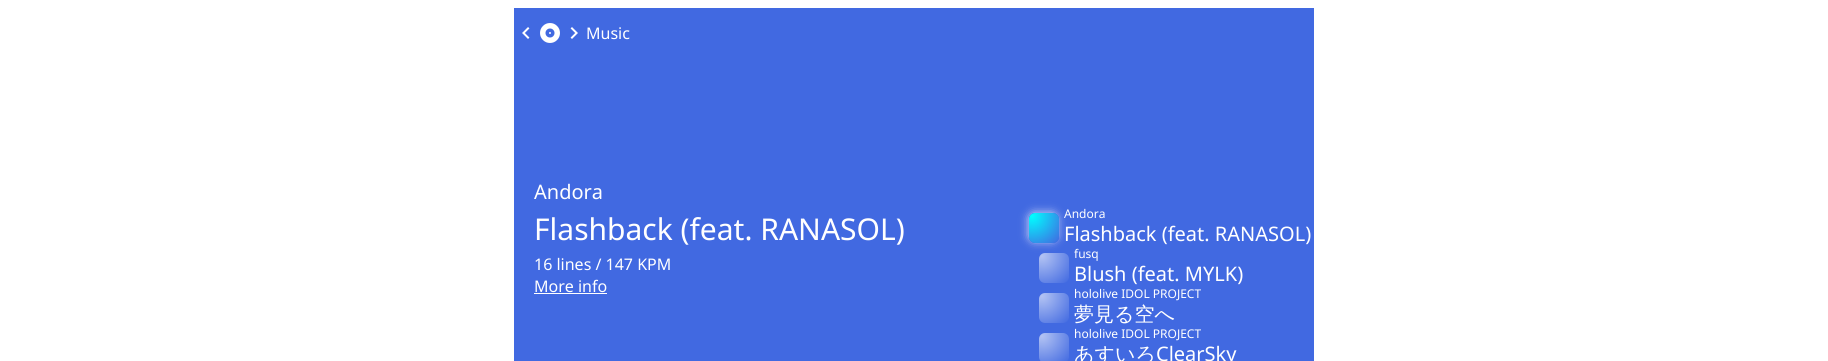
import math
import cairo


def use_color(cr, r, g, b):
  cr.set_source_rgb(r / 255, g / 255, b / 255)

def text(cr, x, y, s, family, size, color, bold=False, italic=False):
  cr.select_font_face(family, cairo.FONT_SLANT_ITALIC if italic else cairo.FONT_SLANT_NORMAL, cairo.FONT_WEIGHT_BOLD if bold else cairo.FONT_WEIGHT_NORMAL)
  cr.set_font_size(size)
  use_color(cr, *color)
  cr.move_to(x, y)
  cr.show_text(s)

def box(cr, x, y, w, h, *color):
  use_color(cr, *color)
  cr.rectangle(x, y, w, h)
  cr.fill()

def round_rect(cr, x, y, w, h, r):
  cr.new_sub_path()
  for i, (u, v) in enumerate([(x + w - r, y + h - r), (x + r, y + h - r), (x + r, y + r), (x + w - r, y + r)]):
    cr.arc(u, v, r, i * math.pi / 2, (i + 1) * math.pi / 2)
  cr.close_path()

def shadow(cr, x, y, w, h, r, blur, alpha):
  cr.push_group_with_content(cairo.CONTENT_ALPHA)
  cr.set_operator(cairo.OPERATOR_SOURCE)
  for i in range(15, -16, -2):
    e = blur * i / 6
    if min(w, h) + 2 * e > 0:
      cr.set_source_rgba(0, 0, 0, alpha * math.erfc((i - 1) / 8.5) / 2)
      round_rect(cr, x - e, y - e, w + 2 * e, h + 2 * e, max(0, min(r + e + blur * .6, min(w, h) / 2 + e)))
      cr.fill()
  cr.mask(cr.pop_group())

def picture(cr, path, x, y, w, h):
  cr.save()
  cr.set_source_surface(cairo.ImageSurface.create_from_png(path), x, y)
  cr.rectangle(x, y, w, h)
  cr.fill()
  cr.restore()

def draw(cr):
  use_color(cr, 255, 255, 255)
  cr.paint()
  box(cr, 514, 8, 800, 353, 65, 105, 225)
  picture(cr, "img_01.png", 522, 27, 8, 12)
  picture(cr, "img_02.png", 540, 23, 20, 20)
  picture(cr, "img_03.png", 570, 27, 8, 12)
  box(cr, 534, 293, 73, 1, 255, 255, 255)
  cr.save()
  cr.set_fill_rule(cairo.FILL_RULE_EVEN_ODD)
  cr.new_path()
  cr.move_to(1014, 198)
  cr.line_to(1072, 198)
  cr.line_to(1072, 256)
  cr.line_to(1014, 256)
  cr.close_path()
  cr.move_to(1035, 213)
  cr.line_to(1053, 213)
  cr.curve_to(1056.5, 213, 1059, 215.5, 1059, 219)
  cr.line_to(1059, 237)
  cr.curve_to(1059, 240.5, 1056.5, 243, 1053, 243)
  cr.line_to(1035, 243)
  cr.curve_to(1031.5, 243, 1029, 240.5, 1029, 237)
  cr.line_to(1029, 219)
  cr.curve_to(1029, 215.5, 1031.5, 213, 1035, 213)
  cr.close_path()
  cr.clip()
  use_color(cr, 255, 255, 255)
  shadow(cr, 1030, 214, 26, 26, 4, 5, 1)
  cr.restore()
  gradient = cairo.RadialGradient(1032, 216, 0, 1032, 216, 38)
  gradient.add_color_stop_rgba(0, 0, 1, 1, 1)
  gradient.add_color_stop_rgba(1, 0, 1, 1, 0)
  cr.set_source(gradient)
  round_rect(cr, 1029, 213, 30, 30, 6)
  cr.fill()
  gradient = cairo.RadialGradient(1042, 256, 0, 1042, 256, 38)
  gradient.add_color_stop_rgba(0, 0.702, 0.765, 0.953, 1)
  gradient.add_color_stop_rgba(1, 0.255, 0.412, 0.882, 1)
  cr.set_source(gradient)
  round_rect(cr, 1039, 253, 30, 30, 6)
  cr.fill()
  gradient = cairo.RadialGradient(1042, 296, 0, 1042, 296, 38)
  gradient.add_color_stop_rgba(0, 0.702, 0.765, 0.953, 1)
  gradient.add_color_stop_rgba(1, 0.255, 0.412, 0.882, 1)
  cr.set_source(gradient)
  round_rect(cr, 1039, 293, 30, 30, 6)
  cr.fill()
  gradient = cairo.RadialGradient(1042, 336, 0, 1042, 336, 38)
  gradient.add_color_stop_rgba(0, 0.702, 0.765, 0.953, 1)
  gradient.add_color_stop_rgba(1, 0.255, 0.412, 0.882, 1)
  cr.set_source(gradient)
  round_rect(cr, 1039, 333, 30, 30, 6)
  cr.fill()
  text(cr, 586, 39, "Music", "Noto Sans", 16, (255, 255, 255))
  text(cr, 534, 199, "Andora", "Noto Sans", 20, (255, 255, 255))
  text(cr, 534, 240, "Flashback (feat. RANASOL)", "Noto Sans", 30, (255, 255, 255))
  text(cr, 534, 270, "16 lines / 147 KPM", "Noto Sans", 16, (255, 255, 255))
  text(cr, 534, 292, "More info", "Noto Sans", 16, (255, 255, 255))
  text(cr, 1064, 218, "Andora", "Noto Sans", 12, (255, 255, 255))
  text(cr, 1064, 241, "Flashback (feat. RANASOL)", "Noto Sans", 20, (255, 255, 255))
  text(cr, 1074, 258, "fusq", "Noto Sans", 12, (255, 255, 255))
  text(cr, 1074, 281, "Blush (feat. MYLK)", "Noto Sans", 20, (255, 255, 255))
  text(cr, 1074, 298, "hololive IDOL PROJECT", "Noto Sans", 12, (255, 255, 255))
  text(cr, 1074, 321, "夢見る空へ", "WenQuanYi Zen Hei Medium", 20, (255, 255, 255))
  text(cr, 1074, 338, "hololive IDOL PROJECT", "Noto Sans", 12, (255, 255, 255))
  text(cr, 1074, 361, "あすいろ", "WenQuanYi Zen Hei Medium", 20, (255, 255, 255))
  text(cr, 1156, 361, "ClearSky", "Noto Sans", 20, (255, 255, 255))


surface = cairo.ImageSurface(cairo.FORMAT_RGB24, 1828, 361)
cr = cairo.Context(surface)
options = cairo.FontOptions()
options.set_hint_metrics(cairo.HINT_METRICS_OFF)
options.set_hint_style(cairo.HINT_STYLE_NONE)
cr.set_font_options(options)
cr.set_miter_limit(4)
draw(cr)
surface.write_to_png("out.png")
